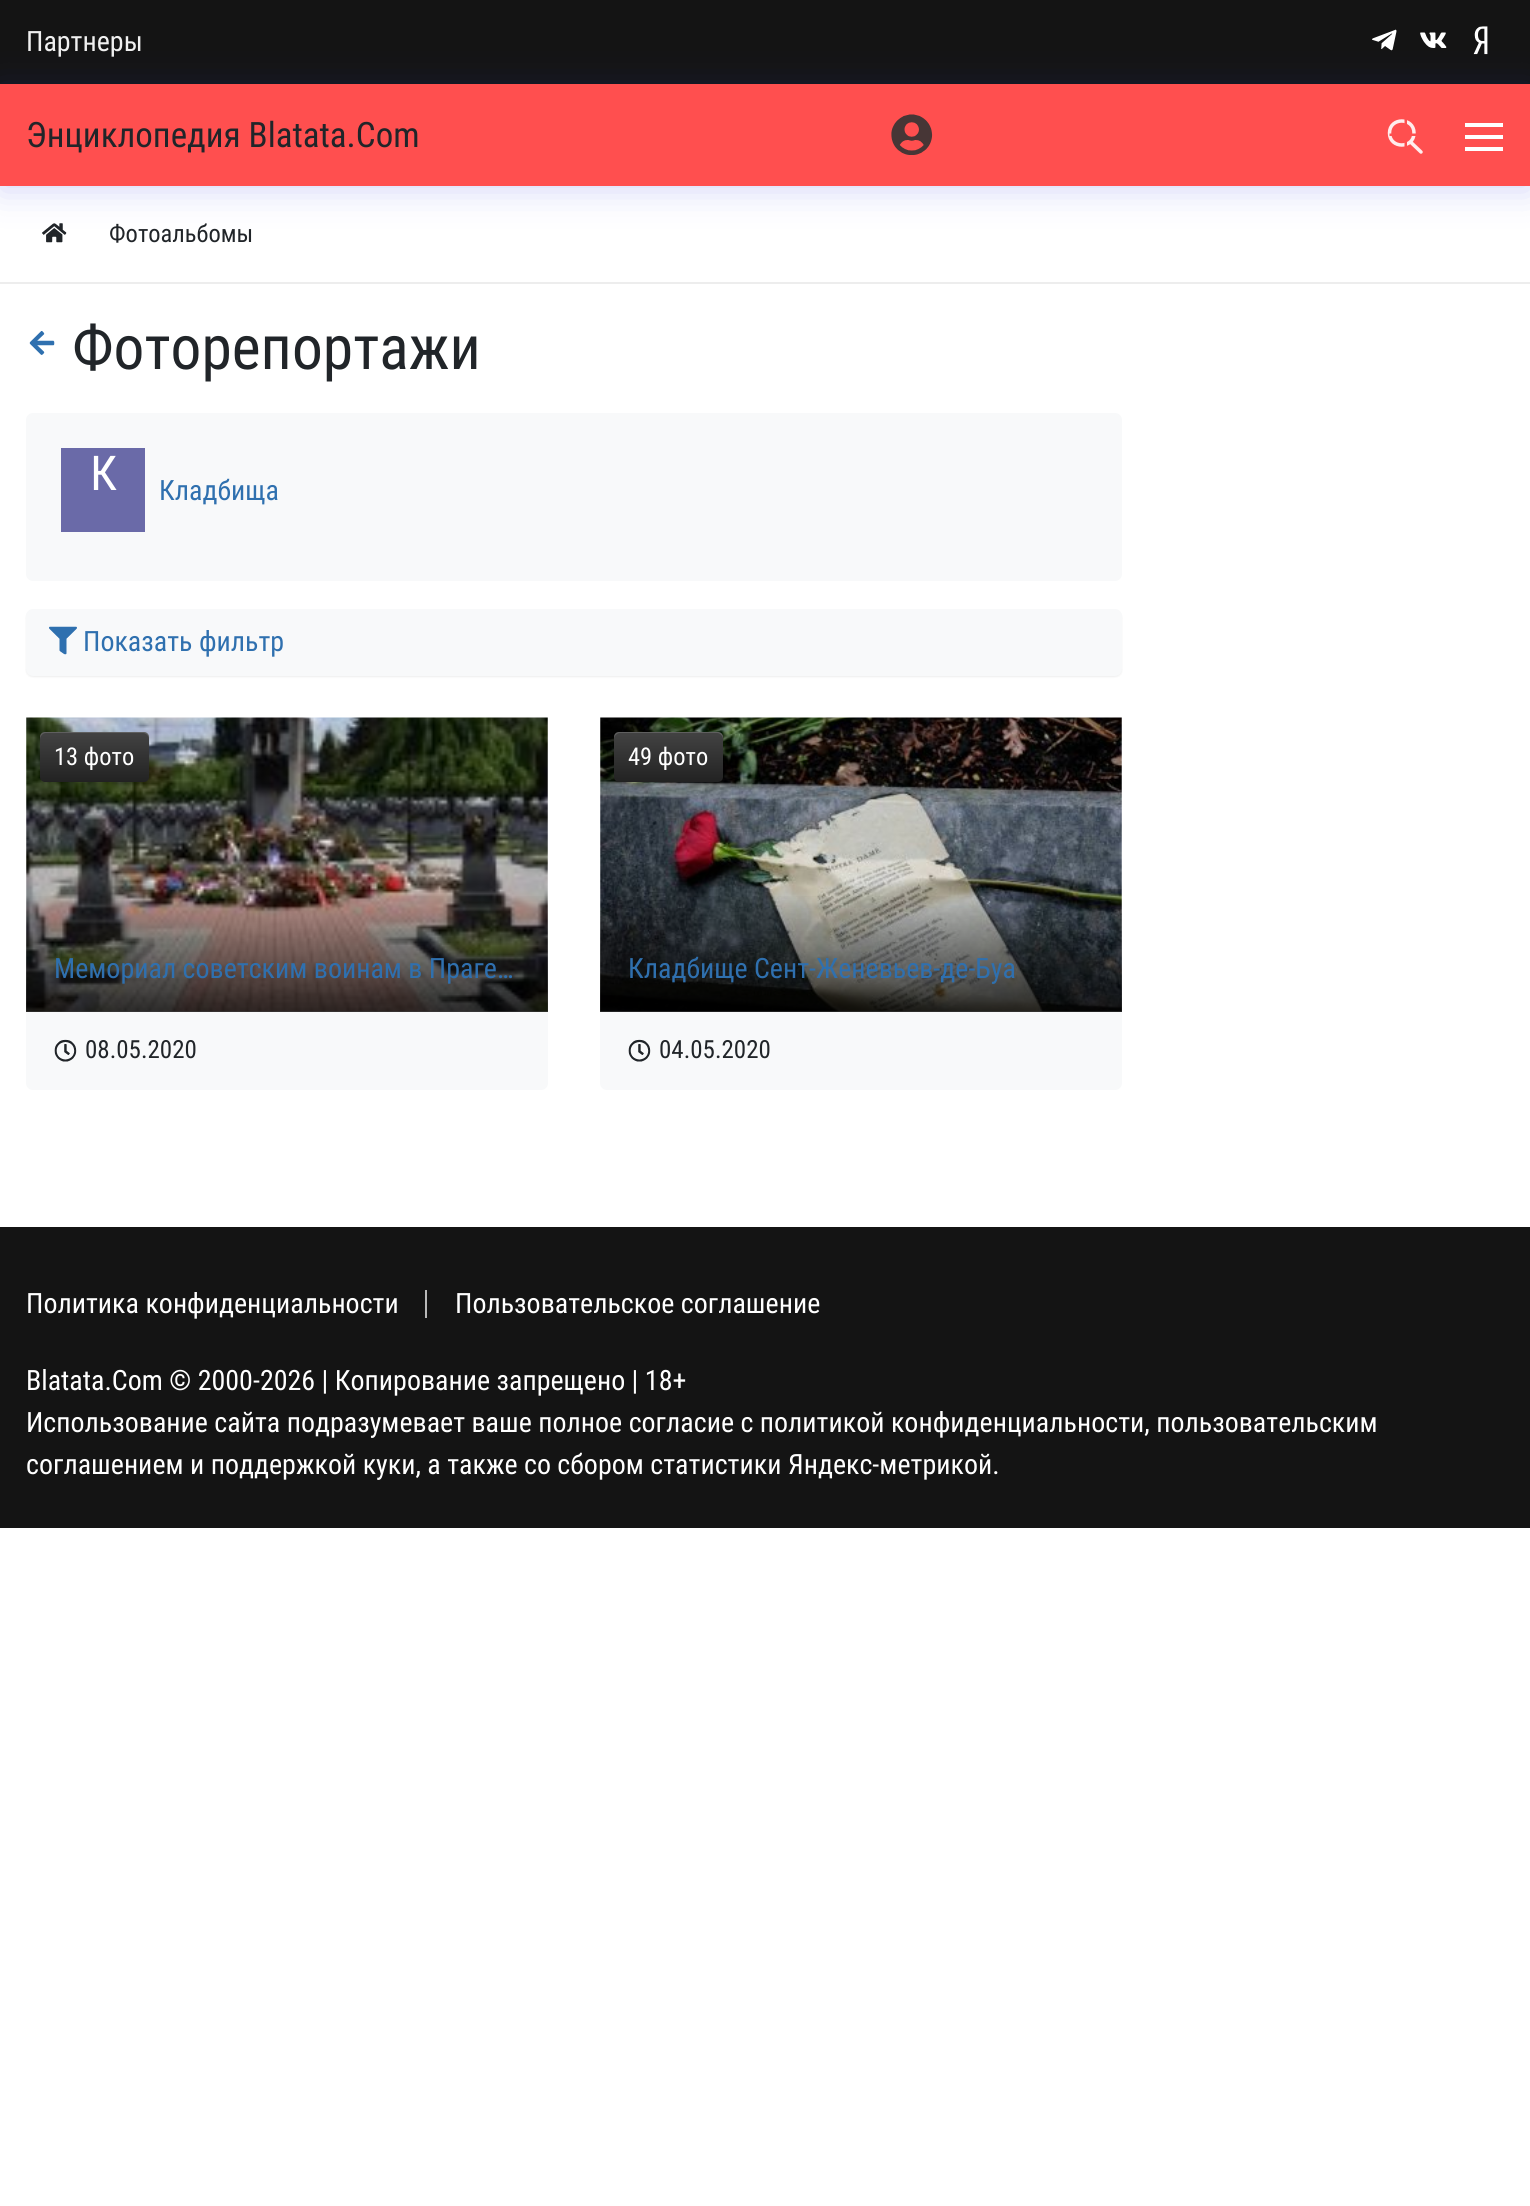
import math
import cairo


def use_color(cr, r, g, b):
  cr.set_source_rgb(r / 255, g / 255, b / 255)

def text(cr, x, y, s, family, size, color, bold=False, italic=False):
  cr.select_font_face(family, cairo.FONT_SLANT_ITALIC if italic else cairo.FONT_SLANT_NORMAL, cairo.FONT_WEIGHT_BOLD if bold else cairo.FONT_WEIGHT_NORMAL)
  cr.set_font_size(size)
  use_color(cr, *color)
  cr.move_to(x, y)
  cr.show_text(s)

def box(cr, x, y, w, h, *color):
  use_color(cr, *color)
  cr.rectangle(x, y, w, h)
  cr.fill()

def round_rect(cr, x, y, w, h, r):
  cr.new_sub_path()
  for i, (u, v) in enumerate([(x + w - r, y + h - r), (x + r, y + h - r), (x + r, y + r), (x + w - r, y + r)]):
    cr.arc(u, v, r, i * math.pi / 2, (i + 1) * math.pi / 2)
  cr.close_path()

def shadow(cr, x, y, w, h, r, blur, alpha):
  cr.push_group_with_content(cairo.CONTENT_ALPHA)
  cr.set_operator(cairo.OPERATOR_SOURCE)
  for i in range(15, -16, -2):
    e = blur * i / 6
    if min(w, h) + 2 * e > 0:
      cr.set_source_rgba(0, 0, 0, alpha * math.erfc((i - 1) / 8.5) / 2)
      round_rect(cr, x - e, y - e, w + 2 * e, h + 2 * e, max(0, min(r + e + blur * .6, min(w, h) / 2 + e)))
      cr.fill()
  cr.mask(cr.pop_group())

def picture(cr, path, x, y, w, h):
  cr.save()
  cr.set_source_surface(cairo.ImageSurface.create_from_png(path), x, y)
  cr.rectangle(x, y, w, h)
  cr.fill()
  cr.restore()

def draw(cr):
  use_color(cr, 255, 255, 255)
  cr.paint()
  box(cr, 0, 0, 1530, 84, 20, 20, 20)
  picture(cr, "img_01.png", 1372, 29, 25, 22)
  picture(cr, "img_02.png", 1420, 32, 27, 16)
  picture(cr, "img_03.png", 1473, 26, 15, 29)
  picture(cr, "img_05.png", 42, 223, 25, 20)
  use_color(cr, 46, 56, 220)
  shadow(cr, 0, 89, 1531, 102, 0, 17.5, 0.2)
  box(cr, 0, 84, 1530, 102, 255, 79, 79)
  picture(cr, "img_04.png", 891, 114, 42, 41)
  cr.new_path()
  cr.move_to(1421, 152)
  cr.line_to(1410.5, 142)
  cr.move_to(1414, 133)
  cr.curve_to(1414, 149, 1389.5, 149, 1389.5, 133)
  cr.curve_to(1389.5, 117, 1414, 117, 1414, 133)
  cr.close_path()
  use_color(cr, 255, 237, 237)
  cr.set_line_width(3.5)
  cr.set_line_cap(cairo.LINE_CAP_ROUND)
  cr.set_line_join(cairo.LINE_JOIN_ROUND)
  cr.stroke()
  use_color(cr, 255, 79, 79)
  cr.new_path()
  cr.move_to(1404.5, 151)
  cr.line_to(1407, 151)
  cr.line_to(1407, 136)
  cr.line_to(1422.5, 136)
  cr.line_to(1422.5, 133.5)
  cr.line_to(1407, 133.5)
  cr.line_to(1407, 118.5)
  cr.line_to(1404.5, 118.5)
  cr.line_to(1404.5, 133.5)
  cr.line_to(1389.5, 133.5)
  cr.line_to(1389.5, 136)
  cr.line_to(1404.5, 136)
  cr.close_path()
  cr.fill()
  box(cr, 1465, 135, 38, 4, 255, 255, 255)
  box(cr, 1465, 123, 38, 4, 255, 255, 255)
  box(cr, 1465, 147, 38, 4, 255, 255, 255)
  box(cr, 0, 282, 1530, 2, 237, 237, 237)
  picture(cr, "img_06.png", 29, 331, 26, 24)
  use_color(cr, 248, 249, 250)
  round_rect(cr, 26, 413, 1096, 168, 7)
  cr.fill()
  box(cr, 61, 448, 84, 84, 106, 106, 168)
  use_color(cr, 0, 0, 0)
  shadow(cr, 26, 611, 1096, 66, 7, 1, 0.07)
  use_color(cr, 248, 249, 250)
  round_rect(cr, 26, 609, 1096, 67, 7)
  cr.fill()
  picture(cr, "img_07.png", 49, 626, 28, 29)
  picture(cr, "img_08.png", 26, 717, 522, 295)
  use_color(cr, 0, 0, 0)
  shadow(cr, 40, 733, 109, 51, 5, 1, 0.07)
  gradient = cairo.LinearGradient(95, 732, 95, 782)
  gradient.add_color_stop_rgba(0, 0.263, 0.263, 0.263, 1)
  gradient.add_color_stop_rgba(1, 0.133, 0.133, 0.133, 1)
  cr.set_source(gradient)
  round_rect(cr, 40, 732, 109, 50, 5)
  cr.fill()
  cr.set_source_rgba(1, 1, 1, 0.15)
  cr.new_path()
  cr.move_to(46, 733)
  cr.line_to(143, 733)
  cr.curve_to(146, 733, 149, 736, 149, 739)
  cr.line_to(149, 737)
  cr.curve_to(149, 734, 147, 732, 144, 732)
  cr.line_to(45, 732)
  cr.curve_to(42, 732, 40, 734, 40, 737)
  cr.line_to(40, 739)
  cr.curve_to(40, 736, 43, 733, 46, 733)
  cr.close_path()
  cr.fill()
  gradient = cairo.LinearGradient(287, 893, 287, 1012)
  gradient.add_color_stop_rgba(0, 0, 0, 0, 0)
  gradient.add_color_stop_rgba(1, 0, 0, 0, 0.75)
  cr.set_source(gradient)
  cr.rectangle(26, 896, 522, 116)
  cr.fill()
  use_color(cr, 248, 249, 250)
  cr.new_path()
  cr.move_to(26, 1012)
  cr.line_to(548, 1012)
  cr.line_to(548, 1083)
  cr.curve_to(548, 1087, 545, 1090, 541, 1090)
  cr.line_to(33, 1090)
  cr.curve_to(29, 1090, 26, 1087, 26, 1083)
  cr.close_path()
  cr.fill()
  picture(cr, "img_09.png", 54, 1039, 23, 23)
  picture(cr, "img_10.png", 600, 717, 522, 295)
  use_color(cr, 0, 0, 0)
  shadow(cr, 614, 733, 109, 51, 5, 1, 0.07)
  gradient = cairo.LinearGradient(669, 732, 669, 782)
  gradient.add_color_stop_rgba(0, 0.263, 0.263, 0.263, 1)
  gradient.add_color_stop_rgba(1, 0.133, 0.133, 0.133, 1)
  cr.set_source(gradient)
  round_rect(cr, 614, 732, 109, 50, 5)
  cr.fill()
  cr.set_source_rgba(1, 1, 1, 0.15)
  cr.new_path()
  cr.move_to(620, 733)
  cr.line_to(717, 733)
  cr.curve_to(720, 733, 723, 736, 723, 739)
  cr.line_to(723, 737)
  cr.curve_to(723, 734, 721, 732, 718, 732)
  cr.line_to(619, 732)
  cr.curve_to(616, 732, 614, 734, 614, 737)
  cr.line_to(614, 739)
  cr.curve_to(614, 736, 617, 733, 620, 733)
  cr.close_path()
  cr.fill()
  gradient = cairo.LinearGradient(861, 893, 861, 1012)
  gradient.add_color_stop_rgba(0, 0, 0, 0, 0)
  gradient.add_color_stop_rgba(1, 0, 0, 0, 0.75)
  cr.set_source(gradient)
  cr.rectangle(600, 896, 522, 116)
  cr.fill()
  use_color(cr, 248, 249, 250)
  cr.new_path()
  cr.move_to(600, 1012)
  cr.line_to(1122, 1012)
  cr.line_to(1122, 1083)
  cr.curve_to(1122, 1087, 1119, 1090, 1115, 1090)
  cr.line_to(607, 1090)
  cr.curve_to(603, 1090, 600, 1087, 600, 1083)
  cr.close_path()
  cr.fill()
  picture(cr, "img_09.png", 628, 1039, 23, 23)
  box(cr, 0, 1227, 1530, 301, 20, 20, 20)
  box(cr, 425, 1290, 2, 28, 185, 185, 185)
  text(cr, 26, 51, "Партнеры", "Roboto Condensed", 28, (240, 240, 240))
  text(cr, 26, 147, "Энциклопедия Blatata.Com", "Roboto Condensed", 35, (33, 37, 41))
  text(cr, 109, 242, "Фотоальбомы", "Roboto Condensed", 24.5, (33, 37, 41))
  text(cr, 72, 369, "Фоторепортажи", "Roboto Condensed", 61.5, (33, 37, 41))
  text(cr, 90, 490, "К", "Roboto Condensed", 48, (255, 255, 255))
  text(cr, 159, 500, "Кладбища", "Roboto Condensed", 28, (47, 112, 175))
  text(cr, 83, 651, "Показать фильтр", "Roboto Condensed", 28, (47, 112, 175))
  text(cr, 54, 765, "13 фото", "Roboto Condensed", 24.5, (255, 255, 255))
  text(cr, 54, 978, "Мемориал советским воинам в Праге…", "Roboto Condensed", 28, (47, 112, 175))
  text(cr, 85, 1058, "08.05.2020", "Roboto Condensed", 25, (33, 37, 41))
  text(cr, 628, 765, "49 фото", "Roboto Condensed", 24.5, (255, 255, 255))
  text(cr, 628, 978, "Кладбище Сент-Женевьев-де-Буа", "Roboto Condensed", 28, (47, 112, 175))
  text(cr, 659, 1058, "04.05.2020", "Roboto Condensed", 25, (33, 37, 41))
  text(cr, 26, 1313, "Политика конфиденциальности", "Roboto Condensed", 28, (255, 255, 255))
  text(cr, 455, 1313, "Пользовательское соглашение", "Roboto Condensed", 28, (255, 255, 255))
  text(cr, 26, 1390, "Blatata.Com © 2000-2026 | Копирование запрещено | 18+", "Roboto Condensed", 28, (255, 255, 255))
  text(cr, 26, 1432, "Использование сайта подразумевает ваше полное согласие с политикой конфиденциальности, пользовательским", "Roboto Condensed", 28, (255, 255, 255))
  text(cr, 26, 1474, "соглашением и поддержкой куки, а также со сбором статистики Яндекс-метрикой.", "Roboto Condensed", 28, (255, 255, 255))


surface = cairo.ImageSurface(cairo.FORMAT_RGB24, 1530, 2206)
cr = cairo.Context(surface)
options = cairo.FontOptions()
options.set_hint_metrics(cairo.HINT_METRICS_OFF)
options.set_hint_style(cairo.HINT_STYLE_NONE)
cr.set_font_options(options)
cr.set_miter_limit(4)
draw(cr)
surface.write_to_png("out.png")
